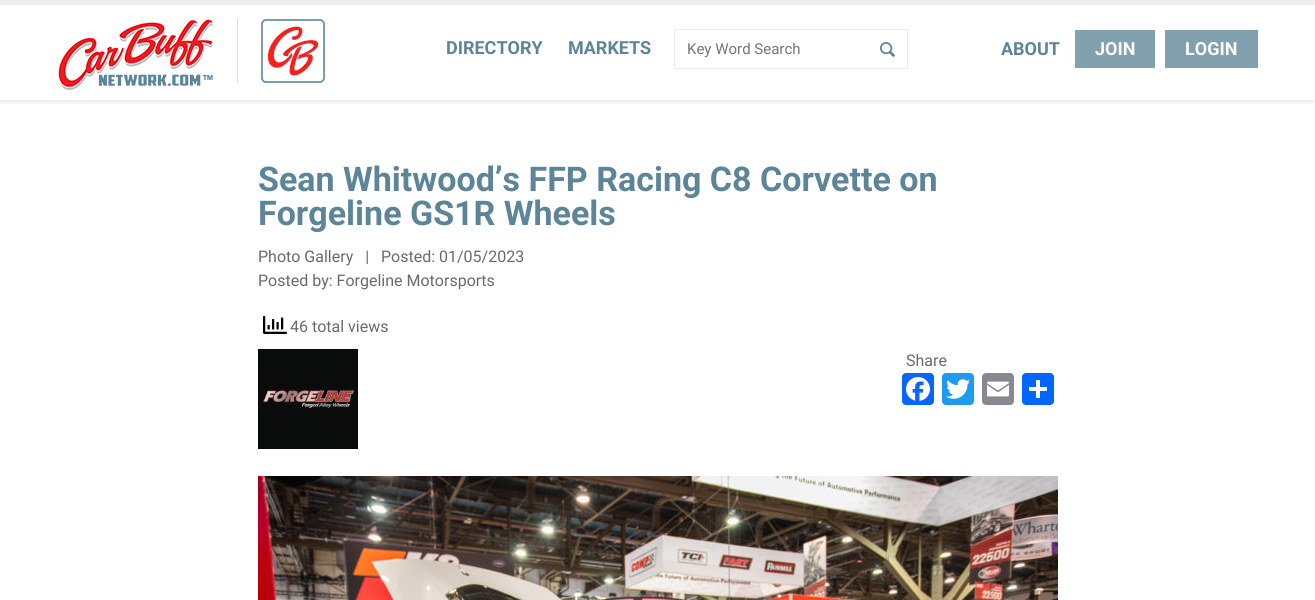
import math
import cairo


def use_color(cr, r, g, b):
  cr.set_source_rgb(r / 255, g / 255, b / 255)

def text(cr, x, y, s, family, size, color, bold=False, italic=False):
  cr.select_font_face(family, cairo.FONT_SLANT_ITALIC if italic else cairo.FONT_SLANT_NORMAL, cairo.FONT_WEIGHT_BOLD if bold else cairo.FONT_WEIGHT_NORMAL)
  cr.set_font_size(size)
  use_color(cr, *color)
  cr.move_to(x, y)
  cr.show_text(s)

def box(cr, x, y, w, h, *color):
  use_color(cr, *color)
  cr.rectangle(x, y, w, h)
  cr.fill()

def round_rect(cr, x, y, w, h, r):
  cr.new_sub_path()
  for i, (u, v) in enumerate([(x + w - r, y + h - r), (x + r, y + h - r), (x + r, y + r), (x + w - r, y + r)]):
    cr.arc(u, v, r, i * math.pi / 2, (i + 1) * math.pi / 2)
  cr.close_path()

def shadow(cr, x, y, w, h, r, blur, alpha):
  cr.push_group_with_content(cairo.CONTENT_ALPHA)
  cr.set_operator(cairo.OPERATOR_SOURCE)
  for i in range(15, -16, -2):
    e = blur * i / 6
    if min(w, h) + 2 * e > 0:
      cr.set_source_rgba(0, 0, 0, alpha * math.erfc((i - 1) / 8.5) / 2)
      round_rect(cr, x - e, y - e, w + 2 * e, h + 2 * e, max(0, min(r + e + blur * .6, min(w, h) / 2 + e)))
      cr.fill()
  cr.mask(cr.pop_group())

def picture(cr, path, x, y, w, h):
  cr.save()
  cr.set_source_surface(cairo.ImageSurface.create_from_png(path), x, y)
  cr.rectangle(x, y, w, h)
  cr.fill()
  cr.restore()

def draw(cr):
  use_color(cr, 255, 255, 255)
  cr.paint()
  use_color(cr, 0, 0, 0)
  shadow(cr, 0, 3, 1315, 100, 0, 1.5, 0.07)
  box(cr, 0, 5, 1315, 95, 255, 255, 255)
  box(cr, 0, 0, 1315, 5, 238, 238, 238)
  picture(cr, "img_01.png", 58, 19, 155, 71)
  box(cr, 237, 19, 1, 64, 220, 220, 220)
  picture(cr, "img_02.png", 261, 19, 64, 64)
  cr.rectangle(674.5, 29.5, 233, 39)
  use_color(cr, 235, 235, 235)
  cr.set_line_width(1)
  cr.stroke()
  picture(cr, "img_03.png", 880, 42, 15, 15)
  box(cr, 1075, 30, 80, 38, 129, 161, 175)
  box(cr, 1165, 30, 93, 38, 129, 161, 175)
  picture(cr, "img_04.png", 263, 316, 24, 18)
  picture(cr, "img_05.png", 258, 349, 100, 100)
  use_color(cr, 8, 102, 255)
  round_rect(cr, 902, 373, 32, 32, 4)
  cr.fill()
  picture(cr, "img_06.png", 906, 377, 24, 24)
  use_color(cr, 29, 155, 240)
  round_rect(cr, 942, 373, 32, 32, 4)
  cr.fill()
  picture(cr, "img_07.png", 946, 379, 24, 20)
  use_color(cr, 136, 137, 144)
  round_rect(cr, 982, 373, 32, 32, 4)
  cr.fill()
  picture(cr, "img_08.png", 987, 381, 22, 16)
  use_color(cr, 1, 102, 255)
  round_rect(cr, 1022, 373, 32, 32, 4)
  cr.fill()
  box(cr, 1036, 380, 4, 18, 255, 255, 255)
  box(cr, 1029, 387, 18, 4, 255, 255, 255)
  picture(cr, "img_09.png", 258, 476, 800, 124)
  text(cr, 446, 54, "DIRECTORY", "Roboto", 18, (92, 133, 151), bold=True)
  text(cr, 568, 54, "MARKETS", "Roboto", 18, (92, 133, 151), bold=True)
  text(cr, 687, 54, "Key Word Search", "Roboto", 15, (117, 117, 117))
  text(cr, 1001, 55, "ABOUT", "Roboto", 18, (92, 133, 151), bold=True)
  text(cr, 1095, 55, "JOIN", "Roboto", 18, (255, 255, 255), bold=True)
  text(cr, 1185, 55, "LOGIN", "Roboto", 18, (255, 255, 255), bold=True)
  text(cr, 258, 191, "Sean Whitwood’s FFP Racing C8 Corvette on", "Roboto", 34, (92, 133, 151), bold=True)
  text(cr, 258, 225, "Forgeline GS1R Wheels", "Roboto", 34, (92, 133, 151), bold=True)
  text(cr, 258, 262, "Photo Gallery   |   Posted: 01/05/2023", "Roboto", 16, (106, 106, 106))
  text(cr, 258, 286, "Posted by: Forgeline Motorsports", "Roboto", 16, (106, 106, 106))
  text(cr, 290, 332, "46 total views", "Roboto", 16, (106, 106, 106))
  text(cr, 906, 366, "Share", "Roboto", 16, (106, 106, 106))


surface = cairo.ImageSurface(cairo.FORMAT_RGB24, 1315, 600)
cr = cairo.Context(surface)
options = cairo.FontOptions()
options.set_hint_metrics(cairo.HINT_METRICS_OFF)
options.set_hint_style(cairo.HINT_STYLE_NONE)
cr.set_font_options(options)
cr.set_miter_limit(4)
draw(cr)
surface.write_to_png("out.png")
